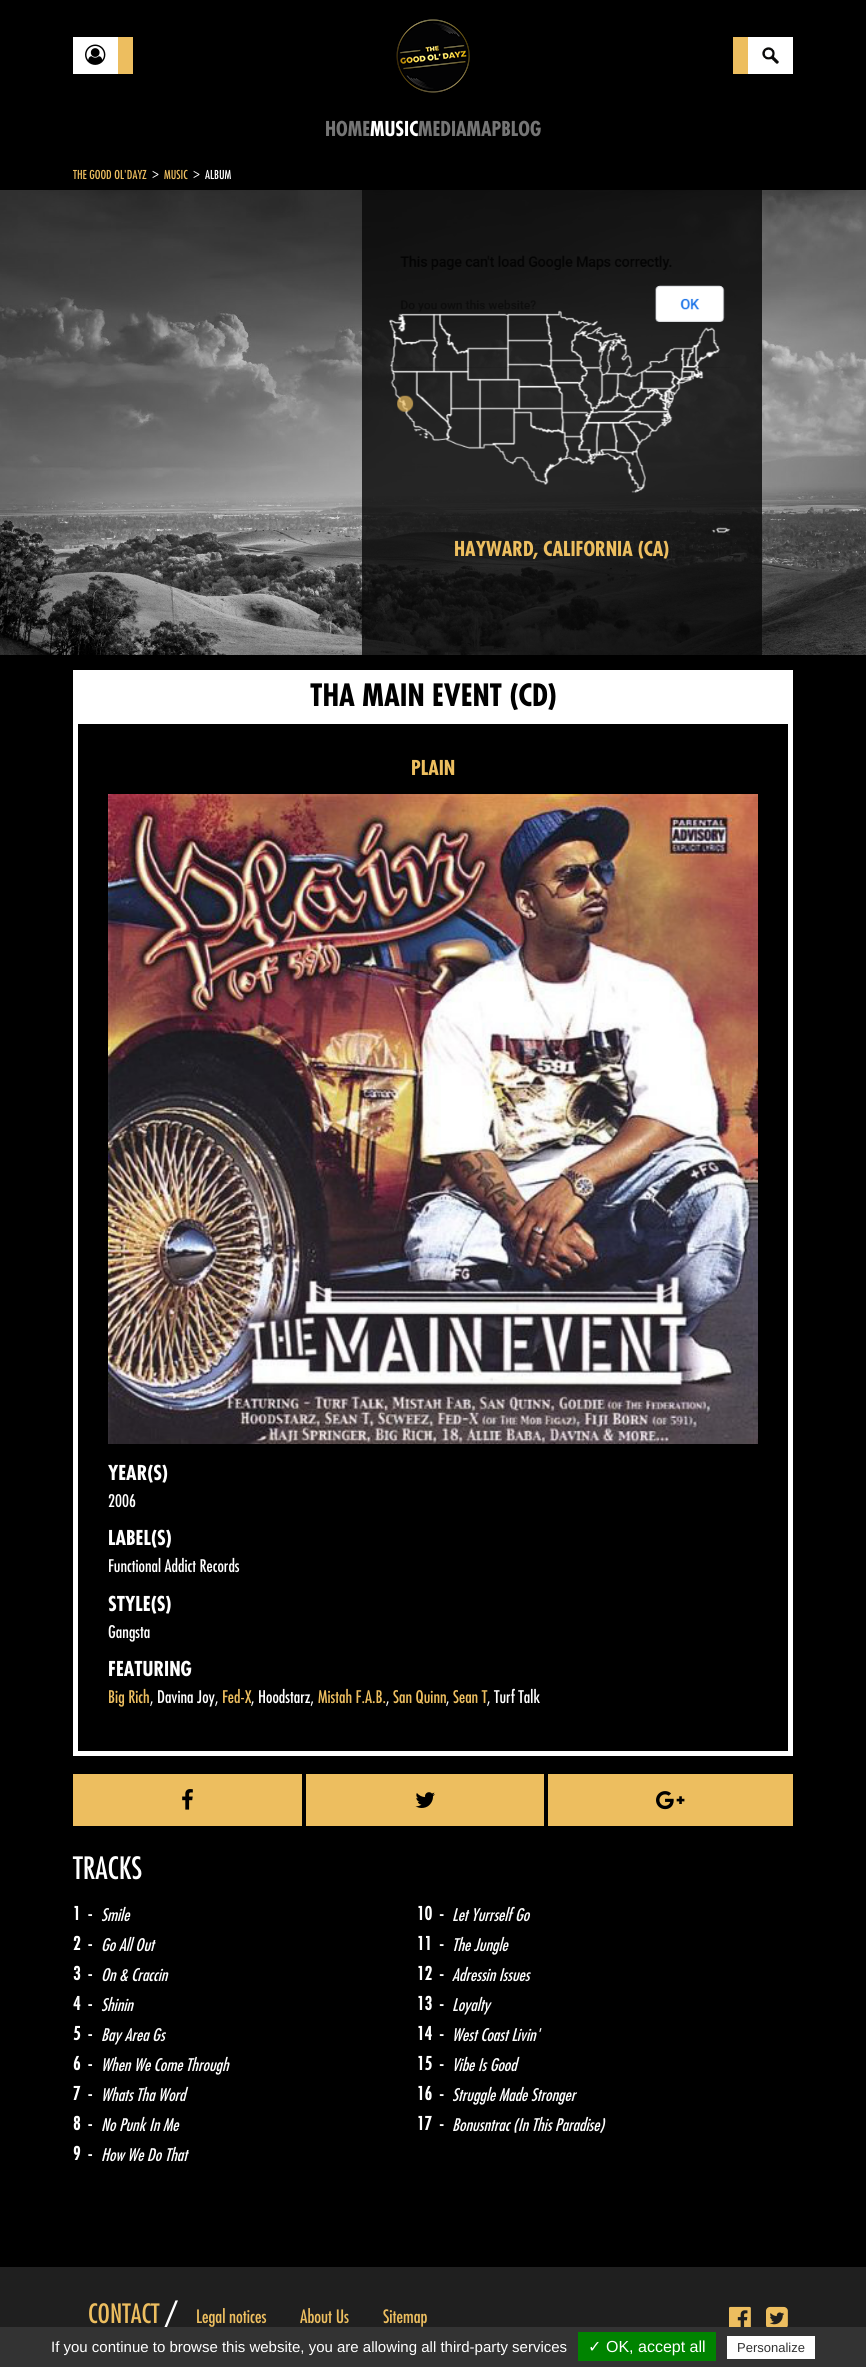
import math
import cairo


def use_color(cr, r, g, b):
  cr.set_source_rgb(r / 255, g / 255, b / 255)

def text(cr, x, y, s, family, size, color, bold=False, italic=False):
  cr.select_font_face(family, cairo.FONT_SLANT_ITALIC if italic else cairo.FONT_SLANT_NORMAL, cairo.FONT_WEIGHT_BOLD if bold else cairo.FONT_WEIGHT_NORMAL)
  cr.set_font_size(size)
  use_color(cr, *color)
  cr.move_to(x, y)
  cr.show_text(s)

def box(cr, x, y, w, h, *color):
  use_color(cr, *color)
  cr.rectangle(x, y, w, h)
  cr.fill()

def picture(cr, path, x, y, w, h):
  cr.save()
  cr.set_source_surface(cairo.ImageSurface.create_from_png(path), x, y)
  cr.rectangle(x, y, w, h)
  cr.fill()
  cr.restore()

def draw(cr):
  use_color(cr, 0, 0, 0)
  cr.paint()
  box(cr, 73, 37, 45, 37, 255, 255, 255)
  picture(cr, "img_01.png", 85, 44, 21, 21)
  box(cr, 118, 37, 15, 37, 237, 190, 95)
  picture(cr, "img_02.png", 396, 19, 74, 74)
  box(cr, 733, 37, 15, 37, 237, 190, 95)
  box(cr, 748, 37, 45, 37, 255, 255, 255)
  picture(cr, "img_03.png", 762, 47, 17, 17)
  picture(cr, "img_04.png", 0, 190, 866, 465)
  cr.set_source_rgba(1, 1, 1, 0.15)
  cr.rectangle(362, 190, 400, 465)
  cr.fill()
  cr.set_source_rgba(0, 0, 0, 0.8)
  cr.rectangle(362, 190, 400, 465)
  cr.fill()
  picture(cr, "img_05.png", 389, 255, 342, 278)
  cr.rectangle(75.5, 672.5, 715, 1081)
  use_color(cr, 255, 255, 255)
  cr.set_line_width(5)
  cr.stroke()
  box(cr, 78, 675, 710, 49, 255, 255, 255)
  picture(cr, "img_06.png", 108, 794, 650, 650)
  box(cr, 73, 1774, 229, 52, 237, 190, 95)
  picture(cr, "img_07.png", 182, 1789, 11, 21)
  box(cr, 306, 1774, 238, 52, 237, 190, 95)
  picture(cr, "img_08.png", 415, 1792, 20, 16)
  box(cr, 548, 1774, 245, 52, 237, 190, 95)
  picture(cr, "img_09.png", 656, 1791, 29, 19)
  box(cr, 0, 2267, 866, 60, 31, 31, 31)
  picture(cr, "img_10.png", 729, 2306, 22, 21)
  picture(cr, "img_11.png", 766, 2306, 22, 21)
  text(cr, 325, 136, "HOME", "Futura", 20, (117, 117, 117), bold=True)
  text(cr, 370, 136, "MUSIC", "Futura", 20, (255, 255, 255), bold=True)
  text(cr, 418, 136, "MEDIAMAPBLOG", "Futura", 20, (117, 117, 117), bold=True)
  text(cr, 73, 179, "THE GOOD OL'DAYZ", "Futura Medium", 12, (237, 190, 95))
  text(cr, 152, 178, ">", "Futura Medium", 14, (255, 255, 255))
  text(cr, 164, 179, "MUSIC", "Futura Medium", 12, (237, 190, 95))
  text(cr, 193, 178, ">", "Futura Medium", 14, (255, 255, 255))
  text(cr, 205, 179, "ALBUM", "Futura Medium", 12, (255, 255, 255))
  text(cr, 454, 556, "HAYWARD, CALIFORNIA (CA)", "Futura", 20, (237, 190, 95), bold=True)
  text(cr, 310, 706, "THA MAIN EVENT (CD)", "Futura", 30, (0, 0, 0), bold=True)
  text(cr, 411, 775, "PLAIN", "Futura", 20, (237, 190, 95), bold=True)
  text(cr, 108, 1480, "YEAR(S)", "Futura", 20, (255, 255, 255), bold=True)
  text(cr, 108, 1507, "2006", "Futura Medium", 17, (255, 255, 255))
  text(cr, 108, 1545, "LABEL(S)", "Futura", 20, (255, 255, 255), bold=True)
  text(cr, 108, 1572, "Functional Addict Records", "Futura Medium", 17, (255, 255, 255))
  text(cr, 108, 1611, "STYLE(S)", "Futura", 20, (255, 255, 255), bold=True)
  text(cr, 108, 1638, "Gangsta", "Futura Medium", 17, (255, 255, 255))
  text(cr, 108, 1676, "FEATURING", "Futura", 20, (255, 255, 255), bold=True)
  text(cr, 108, 1703, "Big Rich", "Futura Medium", 17, (237, 190, 95))
  text(cr, 150, 1703, ", Davina Joy,", "Futura Medium", 17, (255, 255, 255))
  text(cr, 222, 1703, "Fed-X", "Futura Medium", 17, (237, 190, 95))
  text(cr, 251, 1703, ", Hoodstarz,", "Futura Medium", 17, (255, 255, 255))
  text(cr, 318, 1703, "Mistah F.A.B.", "Futura Medium", 17, (237, 190, 95))
  text(cr, 386, 1703, ",", "Futura Medium", 17, (255, 255, 255))
  text(cr, 393, 1703, "San Quinn", "Futura Medium", 17, (237, 190, 95))
  text(cr, 446, 1703, ",", "Futura Medium", 17, (255, 255, 255))
  text(cr, 453, 1703, "Sean T", "Futura Medium", 17, (237, 190, 95))
  text(cr, 487, 1703, ", Turf Talk", "Futura Medium", 17, (255, 255, 255))
  text(cr, 73, 1879, "TRACKS", "Futura Medium", 30, (255, 255, 255))
  text(cr, 73, 1920, "1  -", "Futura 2", 18, (255, 255, 255), bold=True)
  text(cr, 101, 1921, "Smile", "Futura Medium", 17, (255, 255, 255), italic=True)
  text(cr, 73, 1950, "2  -", "Futura 2", 18, (255, 255, 255), bold=True)
  text(cr, 101, 1951, "Go All Out", "Futura Medium", 17, (255, 255, 255), italic=True)
  text(cr, 73, 1980, "3  -", "Futura 2", 18, (255, 255, 255), bold=True)
  text(cr, 101, 1981, "On & Craccin", "Futura Medium", 17, (255, 255, 255), italic=True)
  text(cr, 73, 2010, "4  -", "Futura 2", 18, (255, 255, 255), bold=True)
  text(cr, 101, 2011, "Shinin", "Futura Medium", 17, (255, 255, 255), italic=True)
  text(cr, 73, 2040, "5  -", "Futura 2", 18, (255, 255, 255), bold=True)
  text(cr, 101, 2041, "Bay Area Gs", "Futura Medium", 17, (255, 255, 255), italic=True)
  text(cr, 73, 2070, "6  -", "Futura 2", 18, (255, 255, 255), bold=True)
  text(cr, 101, 2071, "When We Come Through", "Futura Medium", 17, (255, 255, 255), italic=True)
  text(cr, 73, 2100, "7  -", "Futura 2", 18, (255, 255, 255), bold=True)
  text(cr, 101, 2101, "Whats Tha Word", "Futura Medium", 17, (255, 255, 255), italic=True)
  text(cr, 73, 2130, "8  -", "Futura 2", 18, (255, 255, 255), bold=True)
  text(cr, 101, 2131, "No Punk In Me", "Futura Medium", 17, (255, 255, 255), italic=True)
  text(cr, 73, 2160, "9  -", "Futura 2", 18, (255, 255, 255), bold=True)
  text(cr, 101, 2161, "How We Do That", "Futura Medium", 17, (255, 255, 255), italic=True)
  text(cr, 417, 1920, "10  -", "Futura 2", 18, (255, 255, 255), bold=True)
  text(cr, 452, 1921, "Let Yurrself Go", "Futura Medium", 17, (255, 255, 255), italic=True)
  text(cr, 417, 1950, "11  -", "Futura 2", 18, (255, 255, 255), bold=True)
  text(cr, 452, 1951, "The Jungle", "Futura Medium", 17, (255, 255, 255), italic=True)
  text(cr, 417, 1980, "12  -", "Futura 2", 18, (255, 255, 255), bold=True)
  text(cr, 452, 1981, "Adressin Issues", "Futura Medium", 17, (255, 255, 255), italic=True)
  text(cr, 417, 2010, "13  -", "Futura 2", 18, (255, 255, 255), bold=True)
  text(cr, 452, 2011, "Loyalty", "Futura Medium", 17, (255, 255, 255), italic=True)
  text(cr, 417, 2040, "14  -", "Futura 2", 18, (255, 255, 255), bold=True)
  text(cr, 452, 2041, "West Coast Livin'", "Futura Medium", 17, (255, 255, 255), italic=True)
  text(cr, 417, 2070, "15  -", "Futura 2", 18, (255, 255, 255), bold=True)
  text(cr, 452, 2071, "Vibe Is Good", "Futura Medium", 17, (255, 255, 255), italic=True)
  text(cr, 417, 2100, "16  -", "Futura 2", 18, (255, 255, 255), bold=True)
  text(cr, 452, 2101, "Struggle Made Stronger", "Futura Medium", 17, (255, 255, 255), italic=True)
  text(cr, 417, 2130, "17  -", "Futura 2", 18, (255, 255, 255), bold=True)
  text(cr, 452, 2131, "Bonusntrac (In This Paradise)", "Futura Medium", 17, (255, 255, 255), italic=True)
  text(cr, 88, 2323, "CONTACT", "Futura Medium", 26, (237, 190, 95))
  text(cr, 164, 2327, "/", "Futura Medium", 32, (255, 255, 255))
  text(cr, 196, 2323, "Legal notices", "Futura Medium", 18, (237, 190, 95))
  text(cr, 300, 2323, "About Us", "Futura Medium", 18, (237, 190, 95))
  text(cr, 383, 2323, "Sitemap", "Futura Medium", 18, (237, 190, 95))
  box(cr, 0, 2327, 866, 40, 51, 51, 51)
  text(cr, 51, 2352, "If you continue to browse this website, you are allowing all third-party services", "Liberation Sans", 15, (255, 255, 255))
  box(cr, 578, 2332, 138, 29, 0, 131, 0)
  text(cr, 588, 2352, "✓", "DejaVu Sans", 16, (255, 255, 255))
  text(cr, 606, 2352, "OK, accept all", "Liberation Sans", 16, (255, 255, 255))
  box(cr, 727, 2336, 88, 23, 255, 255, 255)
  text(cr, 737, 2352, "Personalize", "Liberation Sans", 13, (51, 51, 51))


surface = cairo.ImageSurface(cairo.FORMAT_RGB24, 866, 2367)
cr = cairo.Context(surface)
options = cairo.FontOptions()
options.set_hint_metrics(cairo.HINT_METRICS_OFF)
options.set_hint_style(cairo.HINT_STYLE_NONE)
cr.set_font_options(options)
cr.set_miter_limit(4)
draw(cr)
surface.write_to_png("out.png")
